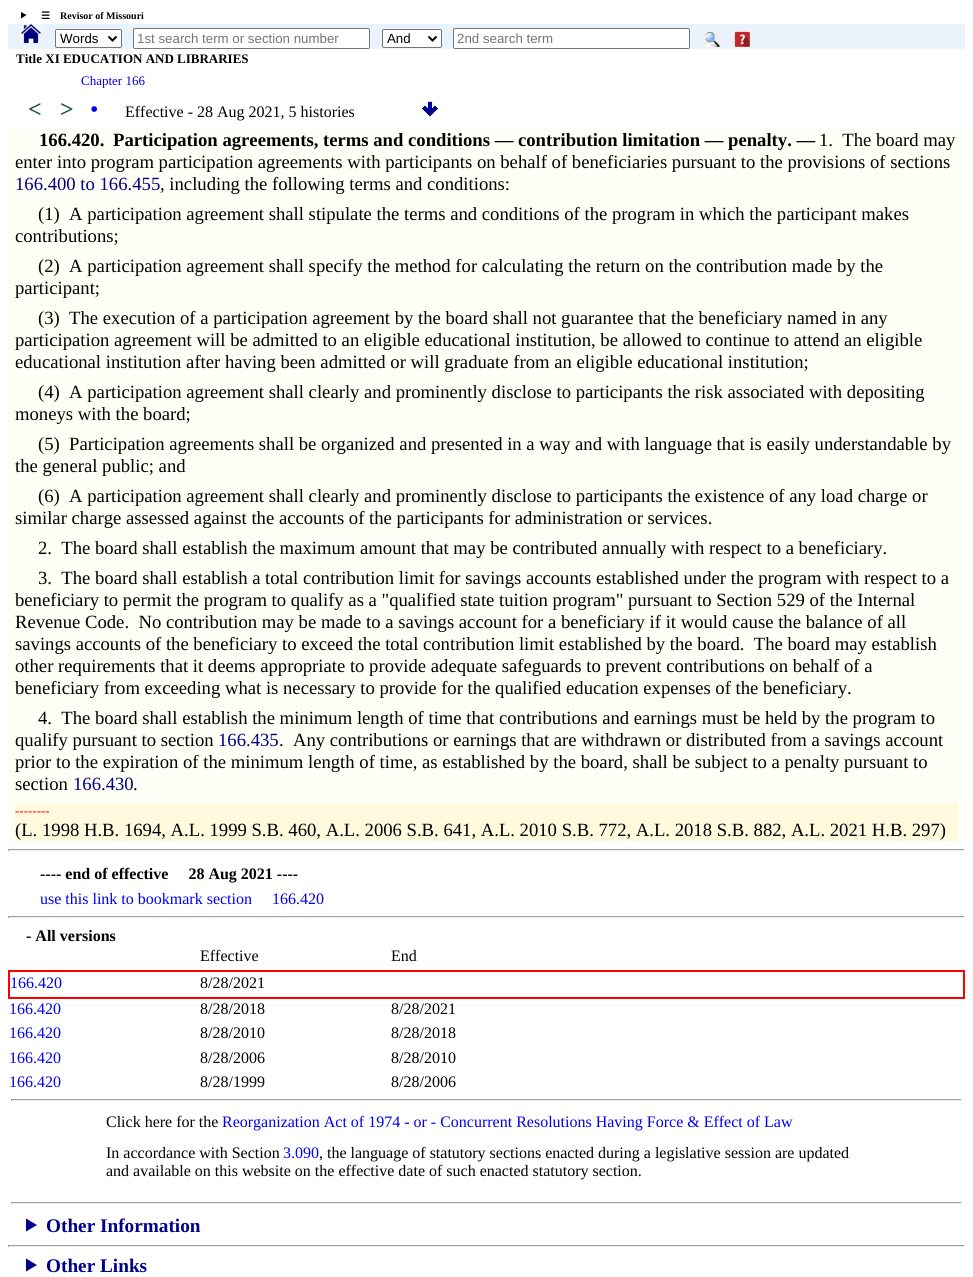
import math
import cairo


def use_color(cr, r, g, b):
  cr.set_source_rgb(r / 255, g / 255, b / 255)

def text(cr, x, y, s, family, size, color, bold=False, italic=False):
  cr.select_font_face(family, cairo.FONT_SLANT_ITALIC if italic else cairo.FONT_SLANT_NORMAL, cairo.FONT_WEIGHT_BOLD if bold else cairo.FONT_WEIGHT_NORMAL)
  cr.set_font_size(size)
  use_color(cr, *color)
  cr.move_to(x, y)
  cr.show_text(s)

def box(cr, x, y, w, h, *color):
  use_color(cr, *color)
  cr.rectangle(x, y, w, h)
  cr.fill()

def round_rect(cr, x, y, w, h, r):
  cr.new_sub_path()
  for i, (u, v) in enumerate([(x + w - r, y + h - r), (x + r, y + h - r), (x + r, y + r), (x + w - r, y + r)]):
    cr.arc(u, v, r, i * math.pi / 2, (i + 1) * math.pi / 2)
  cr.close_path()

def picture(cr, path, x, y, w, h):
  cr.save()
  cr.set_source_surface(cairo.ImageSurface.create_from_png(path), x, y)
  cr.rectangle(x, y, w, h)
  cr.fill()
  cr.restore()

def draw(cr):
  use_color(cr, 255, 255, 255)
  cr.paint()
  use_color(cr, 0, 0, 0)
  cr.new_path()
  cr.move_to(21, 12)
  cr.line_to(26.5, 15)
  cr.line_to(21, 18.5)
  cr.close_path()
  cr.fill()
  box(cr, 8, 24, 957, 25, 234, 243, 251)
  picture(cr, "img_01.png", 21, 24, 20, 19)
  use_color(cr, 255, 255, 255)
  round_rect(cr, 55.5, 29.5, 66, 18, 1.5)
  cr.fill_preserve()
  use_color(cr, 118, 118, 118)
  cr.set_line_width(1)
  cr.stroke()
  cr.new_path()
  cr.move_to(108.5, 36.5)
  cr.line_to(112.5, 40.5)
  cr.line_to(116.5, 36.5)
  use_color(cr, 0, 0, 0)
  cr.set_line_width(2)
  cr.stroke()
  use_color(cr, 255, 255, 255)
  round_rect(cr, 133.5, 28.5, 236, 20, 1.5)
  cr.fill_preserve()
  use_color(cr, 118, 118, 118)
  cr.set_line_width(1)
  cr.stroke()
  use_color(cr, 255, 255, 255)
  round_rect(cr, 382.5, 29.5, 59, 18, 1.5)
  cr.fill_preserve()
  use_color(cr, 118, 118, 118)
  cr.stroke()
  cr.new_path()
  cr.move_to(428.5, 36.5)
  cr.line_to(432.5, 40.5)
  cr.line_to(436.5, 36.5)
  use_color(cr, 0, 0, 0)
  cr.set_line_width(2)
  cr.stroke()
  use_color(cr, 255, 255, 255)
  round_rect(cr, 453.5, 28.5, 236, 20, 1.5)
  cr.fill_preserve()
  use_color(cr, 118, 118, 118)
  cr.set_line_width(1)
  cr.stroke()
  picture(cr, "img_02.png", 704, 31, 16, 16)
  picture(cr, "img_03.png", 734, 31, 16, 16)
  picture(cr, "img_04.png", 422, 101, 16, 16)
  box(cr, 8, 129, 957, 712, 255, 255, 247)
  box(cr, 15, 803, 943, 38, 255, 250, 222)
  box(cr, 8, 849, 957, 1, 159, 159, 159)
  box(cr, 964, 849, 1, 2, 238, 238, 238)
  box(cr, 8, 850, 957, 1, 238, 238, 238)
  box(cr, 8, 849, 1, 2, 159, 159, 159)
  box(cr, 8, 916, 957, 1, 159, 159, 159)
  box(cr, 964, 916, 1, 2, 238, 238, 238)
  box(cr, 8, 917, 957, 1, 238, 238, 238)
  box(cr, 8, 916, 1, 2, 159, 159, 159)
  box(cr, 8, 970, 957, 2, 255, 0, 0)
  box(cr, 963, 970, 2, 29, 255, 0, 0)
  box(cr, 8, 997, 957, 2, 255, 0, 0)
  box(cr, 8, 970, 2, 29, 255, 0, 0)
  box(cr, 11, 1099, 951, 1, 159, 159, 159)
  box(cr, 961, 1099, 1, 2, 238, 238, 238)
  box(cr, 11, 1100, 951, 1, 238, 238, 238)
  box(cr, 11, 1099, 1, 2, 159, 159, 159)
  box(cr, 11, 1202, 951, 1, 159, 159, 159)
  box(cr, 961, 1202, 1, 2, 238, 238, 238)
  box(cr, 11, 1203, 951, 1, 238, 238, 238)
  box(cr, 11, 1202, 1, 2, 159, 159, 159)
  use_color(cr, 0, 0, 139)
  cr.new_path()
  cr.move_to(26, 1218.5)
  cr.line_to(37, 1225)
  cr.line_to(26, 1231.5)
  cr.close_path()
  cr.fill()
  box(cr, 8, 1245, 957, 1, 159, 159, 159)
  box(cr, 964, 1245, 1, 2, 238, 238, 238)
  box(cr, 8, 1246, 957, 1, 238, 238, 238)
  box(cr, 8, 1245, 1, 2, 159, 159, 159)
  use_color(cr, 0, 0, 139)
  cr.new_path()
  cr.move_to(26, 1258.5)
  cr.line_to(37, 1265)
  cr.line_to(26, 1271.5)
  cr.close_path()
  cr.fill()
  text(cr, 41, 19, "☰", "DejaVu Sans", 10, (0, 0, 0), bold=True)
  text(cr, 60, 19, "Revisor of Missouri", "Liberation Serif", 10, (0, 0, 0), bold=True)
  text(cr, 60, 43, "Words", "Liberation Sans", 13.3, (0, 0, 0))
  text(cr, 137, 43, "1st search term or section number", "Liberation Sans", 13.3, (117, 117, 117))
  text(cr, 387, 43, "And", "Liberation Sans", 13.3, (0, 0, 0))
  text(cr, 457, 43, "2nd search term", "Liberation Sans", 13.3, (117, 117, 117))
  text(cr, 16, 63, "Title XI EDUCATION AND LIBRARIES", "Liberation Serif", 13, (0, 0, 0), bold=True)
  text(cr, 81, 85, "Chapter 166", "Liberation Serif", 13, (0, 0, 238))
  text(cr, 28, 117, "<", "Liberation Serif", 24, (20, 90, 50), bold=True)
  text(cr, 60, 117, ">", "Liberation Serif", 24, (20, 90, 50), bold=True)
  text(cr, 90, 117, "•", "Liberation Serif", 24, (0, 0, 238))
  text(cr, 125, 117, "Effective - 28 Aug 2021, 5 histories", "Liberation Serif", 16, (0, 0, 0))
  text(cr, 39, 146, "166.420.", "Liberation Serif", 18.67, (0, 0, 0), bold=True)
  text(cr, 113, 146, "Participation agreements, terms and conditions — contribution limitation — penalty. —", "Liberation Serif", 18.67, (0, 0, 0), bold=True)
  text(cr, 819, 146, "1.  The board may", "Liberation Serif", 18.67, (0, 0, 0))
  text(cr, 15, 168, "enter into program participation agreements with participants on behalf of beneficiaries pursuant to the provisions of sections", "Liberation Serif", 18.67, (0, 0, 0))
  text(cr, 15, 190, "166.400 to 166.455", "Liberation Serif", 18.67, (0, 0, 128))
  text(cr, 160, 190, ", including the following terms and conditions:", "Liberation Serif", 18.67, (0, 0, 0))
  text(cr, 38, 220, "(1)  A participation agreement shall stipulate the terms and conditions of the program in which the participant makes", "Liberation Serif", 18.67, (0, 0, 0))
  text(cr, 15, 242, "contributions;", "Liberation Serif", 18.67, (0, 0, 0))
  text(cr, 38, 272, "(2)  A participation agreement shall specify the method for calculating the return on the contribution made by the", "Liberation Serif", 18.67, (0, 0, 0))
  text(cr, 15, 294, "participant;", "Liberation Serif", 18.67, (0, 0, 0))
  text(cr, 38, 324, "(3)  The execution of a participation agreement by the board shall not guarantee that the beneficiary named in any", "Liberation Serif", 18.67, (0, 0, 0))
  text(cr, 15, 346, "participation agreement will be admitted to an eligible educational institution, be allowed to continue to attend an eligible", "Liberation Serif", 18.67, (0, 0, 0))
  text(cr, 15, 368, "educational institution after having been admitted or will graduate from an eligible educational institution;", "Liberation Serif", 18.67, (0, 0, 0))
  text(cr, 38, 398, "(4)  A participation agreement shall clearly and prominently disclose to participants the risk associated with depositing", "Liberation Serif", 18.67, (0, 0, 0))
  text(cr, 15, 420, "moneys with the board;", "Liberation Serif", 18.67, (0, 0, 0))
  text(cr, 38, 450, "(5)  Participation agreements shall be organized and presented in a way and with language that is easily understandable by", "Liberation Serif", 18.67, (0, 0, 0))
  text(cr, 15, 472, "the general public; and", "Liberation Serif", 18.67, (0, 0, 0))
  text(cr, 38, 502, "(6)  A participation agreement shall clearly and prominently disclose to participants the existence of any load charge or", "Liberation Serif", 18.67, (0, 0, 0))
  text(cr, 15, 524, "similar charge assessed against the accounts of the participants for administration or services.", "Liberation Serif", 18.67, (0, 0, 0))
  text(cr, 38, 554, "2.  The board shall establish the maximum amount that may be contributed annually with respect to a beneficiary.", "Liberation Serif", 18.67, (0, 0, 0))
  text(cr, 38, 584, "3.  The board shall establish a total contribution limit for savings accounts established under the program with respect to a", "Liberation Serif", 18.67, (0, 0, 0))
  text(cr, 15, 606, "beneficiary to permit the program to qualify as a \"qualified state tuition program\" pursuant to Section 529 of the Internal", "Liberation Serif", 18.67, (0, 0, 0))
  text(cr, 15, 628, "Revenue Code.  No contribution may be made to a savings account for a beneficiary if it would cause the balance of all", "Liberation Serif", 18.67, (0, 0, 0))
  text(cr, 15, 650, "savings accounts of the beneficiary to exceed the total contribution limit established by the board.  The board may establish", "Liberation Serif", 18.67, (0, 0, 0))
  text(cr, 15, 672, "other requirements that it deems appropriate to provide adequate safeguards to prevent contributions on behalf of a", "Liberation Serif", 18.67, (0, 0, 0))
  text(cr, 15, 694, "beneficiary from exceeding what is necessary to provide for the qualified education expenses of the beneficiary.", "Liberation Serif", 18.67, (0, 0, 0))
  text(cr, 38, 724, "4.  The board shall establish the minimum length of time that contributions and earnings must be held by the program to", "Liberation Serif", 18.67, (0, 0, 0))
  text(cr, 15, 746, "qualify pursuant to section", "Liberation Serif", 18.67, (0, 0, 0))
  text(cr, 218, 746, "166.435", "Liberation Serif", 18.67, (0, 0, 128))
  text(cr, 279, 746, ".  Any contributions or earnings that are withdrawn or distributed from a savings account", "Liberation Serif", 18.67, (0, 0, 0))
  text(cr, 15, 768, "prior to the expiration of the minimum length of time, as established by the board, shall be subject to a penalty pursuant to", "Liberation Serif", 18.67, (0, 0, 0))
  text(cr, 15, 790, "section", "Liberation Serif", 18.67, (0, 0, 0))
  text(cr, 73, 790, "166.430", "Liberation Serif", 18.67, (0, 0, 128))
  text(cr, 133, 790, ".", "Liberation Serif", 18.67, (0, 0, 0))
  text(cr, 15, 815, "--------", "Liberation Serif", 13, (255, 0, 0))
  text(cr, 15, 836, "(L. 1998 H.B. 1694, A.L. 1999 S.B. 460, A.L. 2006 S.B. 641, A.L. 2010 S.B. 772, A.L. 2018 S.B. 882, A.L. 2021 H.B. 297)", "Liberation Serif", 18.67, (0, 0, 0))
  text(cr, 40, 879, "---- end of effective  28 Aug 2021 ----", "Liberation Serif", 16, (0, 0, 0), bold=True)
  text(cr, 40, 904, "use this link to bookmark section  166.420", "Liberation Serif", 16, (0, 0, 238))
  text(cr, 26, 941, "- All versions", "Liberation Serif", 16, (0, 0, 0), bold=True)
  text(cr, 200, 961, "Effective", "Liberation Serif", 16, (0, 0, 0))
  text(cr, 391, 961, "End", "Liberation Serif", 16, (0, 0, 0))
  text(cr, 10, 988, "166.420", "Liberation Serif", 16, (0, 0, 238))
  text(cr, 200, 988, "8/28/2021", "Liberation Serif", 16, (0, 0, 0))
  text(cr, 9, 1014, "166.420", "Liberation Serif", 16, (0, 0, 238))
  text(cr, 200, 1014, "8/28/2018", "Liberation Serif", 16, (0, 0, 0))
  text(cr, 391, 1014, "8/28/2021", "Liberation Serif", 16, (0, 0, 0))
  text(cr, 9, 1038, "166.420", "Liberation Serif", 16, (0, 0, 238))
  text(cr, 200, 1038, "8/28/2010", "Liberation Serif", 16, (0, 0, 0))
  text(cr, 391, 1038, "8/28/2018", "Liberation Serif", 16, (0, 0, 0))
  text(cr, 9, 1063, "166.420", "Liberation Serif", 16, (0, 0, 238))
  text(cr, 200, 1063, "8/28/2006", "Liberation Serif", 16, (0, 0, 0))
  text(cr, 391, 1063, "8/28/2010", "Liberation Serif", 16, (0, 0, 0))
  text(cr, 9, 1087, "166.420", "Liberation Serif", 16, (0, 0, 238))
  text(cr, 200, 1087, "8/28/1999", "Liberation Serif", 16, (0, 0, 0))
  text(cr, 391, 1087, "8/28/2006", "Liberation Serif", 16, (0, 0, 0))
  text(cr, 106, 1127, "Click here for the", "Liberation Serif", 16, (0, 0, 0))
  text(cr, 222, 1127, "Reorganization Act of 1974 - or - Concurrent Resolutions Having Force & Effect of Law", "Liberation Serif", 16, (0, 0, 238))
  text(cr, 106, 1158, "In accordance with Section", "Liberation Serif", 16, (0, 0, 0))
  text(cr, 283, 1158, "3.090", "Liberation Serif", 16, (0, 0, 238))
  text(cr, 319, 1158, ", the language of statutory sections enacted during a legislative session are updated", "Liberation Serif", 16, (0, 0, 0))
  text(cr, 106, 1176, "and available on this website on the effective date of such enacted statutory section.", "Liberation Serif", 16, (0, 0, 0))
  text(cr, 46, 1232, "Other Information", "Liberation Serif", 19.25, (0, 0, 139), bold=True)
  text(cr, 46, 1272, "Other Links", "Liberation Serif", 19.25, (0, 0, 139), bold=True)


surface = cairo.ImageSurface(cairo.FORMAT_RGB24, 973, 1277)
cr = cairo.Context(surface)
options = cairo.FontOptions()
options.set_hint_metrics(cairo.HINT_METRICS_OFF)
options.set_hint_style(cairo.HINT_STYLE_NONE)
cr.set_font_options(options)
cr.set_miter_limit(4)
draw(cr)
surface.write_to_png("out.png")
